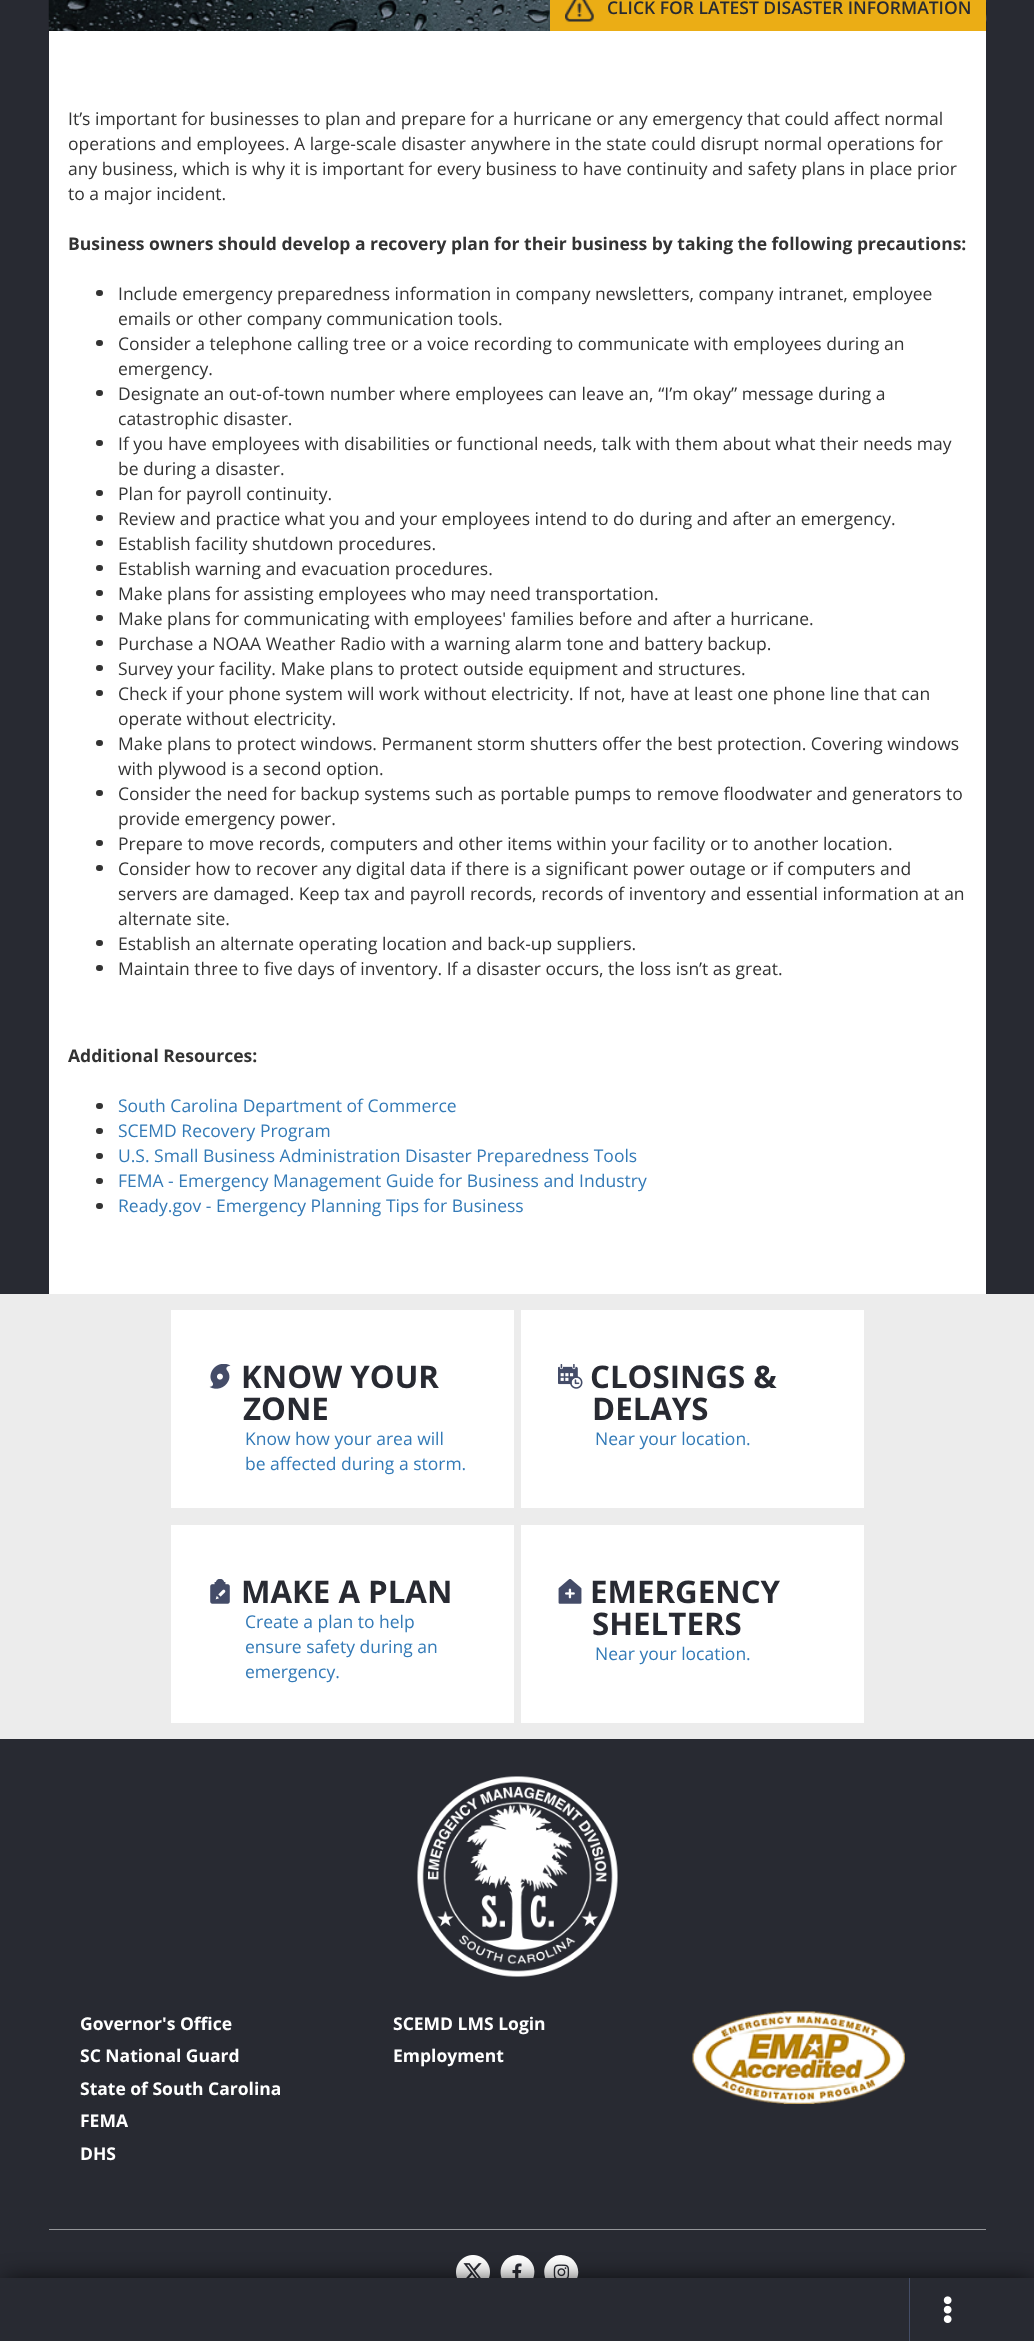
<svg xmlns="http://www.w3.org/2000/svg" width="1034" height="2341">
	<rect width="100%" height="100%" fill="#282A32" />
	<image x="48" y="0" width="939" height="32" href="assets/img1.png" />
	<rect x="550" y="0" width="436" height="31" fill="#EBAD15" />
	<image x="565" y="0" width="29" height="22" href="assets/img2.png" />
	<text x="607" y="14" font-family="Open Sans" font-size="17.5" font-weight="600" fill="#282A32">CLICK FOR LATEST DISASTER INFORMATION</text>
	<rect x="49" y="31" width="937" height="1263" fill="#FFFFFF" />
	<g font-family="Open Sans" font-size="17.5" fill="#333333">
		<text x="68" y="125">It’s important for businesses to plan and prepare for a hurricane or any emergency that could affect normal</text>
		<text x="68" y="150">operations and employees. A large-scale disaster anywhere in the state could disrupt normal operations for</text>
		<text x="68" y="175">any business, which is why it is important for every business to have continuity and safety plans in place prior</text>
		<text x="68" y="200">to a major incident.</text>
	</g>
	<text x="68" y="250" font-family="Open Sans" font-size="17.5" font-weight="700" fill="#333333">Business owners should develop a recovery plan for their business by taking the following precautions:</text>
	<rect x="96" y="290" width="7" height="6" rx="3" fill="#333333" />
	<g font-family="Open Sans" font-size="17.5" fill="#333333">
		<text x="118" y="300">Include emergency preparedness information in company newsletters, company intranet, employee</text>
		<text x="118" y="325">emails or other company communication tools.</text>
	</g>
	<rect x="96" y="340" width="7" height="6" rx="3" fill="#333333" />
	<g font-family="Open Sans" font-size="17.5" fill="#333333">
		<text x="118" y="350">Consider a telephone calling tree or a voice recording to communicate with employees during an</text>
		<text x="118" y="375">emergency.</text>
	</g>
	<rect x="96" y="390" width="7" height="6" rx="3" fill="#333333" />
	<g font-family="Open Sans" font-size="17.5" fill="#333333">
		<text x="118" y="400">Designate an out-of-town number where employees can leave an, “I’m okay” message during a</text>
		<text x="118" y="425">catastrophic disaster.</text>
	</g>
	<rect x="96" y="440" width="7" height="6" rx="3" fill="#333333" />
	<g font-family="Open Sans" font-size="17.5" fill="#333333">
		<text x="118" y="450">If you have employees with disabilities or functional needs, talk with them about what their needs may</text>
		<text x="118" y="475">be during a disaster.</text>
	</g>
	<rect x="96" y="490" width="7" height="6" rx="3" fill="#333333" />
	<text x="118" y="500" font-family="Open Sans" font-size="17.5" fill="#333333">Plan for payroll continuity.</text>
	<rect x="96" y="515" width="7" height="6" rx="3" fill="#333333" />
	<text x="118" y="525" font-family="Open Sans" font-size="17.5" fill="#333333">Review and practice what you and your employees intend to do during and after an emergency.</text>
	<rect x="96" y="540" width="7" height="6" rx="3" fill="#333333" />
	<text x="118" y="550" font-family="Open Sans" font-size="17.5" fill="#333333">Establish facility shutdown procedures.</text>
	<rect x="96" y="565" width="7" height="6" rx="3" fill="#333333" />
	<text x="118" y="575" font-family="Open Sans" font-size="17.5" fill="#333333">Establish warning and evacuation procedures.</text>
	<rect x="96" y="590" width="7" height="6" rx="3" fill="#333333" />
	<text x="118" y="600" font-family="Open Sans" font-size="17.5" fill="#333333">Make plans for assisting employees who may need transportation.</text>
	<rect x="96" y="615" width="7" height="6" rx="3" fill="#333333" />
	<text x="118" y="625" font-family="Open Sans" font-size="17.5" fill="#333333">Make plans for communicating with employees' families before and after a hurricane.</text>
	<rect x="96" y="640" width="7" height="6" rx="3" fill="#333333" />
	<text x="118" y="650" font-family="Open Sans" font-size="17.5" fill="#333333">Purchase a NOAA Weather Radio with a warning alarm tone and battery backup.</text>
	<rect x="96" y="665" width="7" height="6" rx="3" fill="#333333" />
	<text x="118" y="675" font-family="Open Sans" font-size="17.5" fill="#333333">Survey your facility. Make plans to protect outside equipment and structures.</text>
	<rect x="96" y="690" width="7" height="6" rx="3" fill="#333333" />
	<g font-family="Open Sans" font-size="17.5" fill="#333333">
		<text x="118" y="700">Check if your phone system will work without electricity. If not, have at least one phone line that can</text>
		<text x="118" y="725">operate without electricity.</text>
	</g>
	<rect x="96" y="740" width="7" height="6" rx="3" fill="#333333" />
	<g font-family="Open Sans" font-size="17.5" fill="#333333">
		<text x="118" y="750">Make plans to protect windows. Permanent storm shutters offer the best protection. Covering windows</text>
		<text x="118" y="775">with plywood is a second option.</text>
	</g>
	<rect x="96" y="790" width="7" height="6" rx="3" fill="#333333" />
	<g font-family="Open Sans" font-size="17.5" fill="#333333">
		<text x="118" y="800">Consider the need for backup systems such as portable pumps to remove floodwater and generators to</text>
		<text x="118" y="825">provide emergency power.</text>
	</g>
	<rect x="96" y="840" width="7" height="6" rx="3" fill="#333333" />
	<text x="118" y="850" font-family="Open Sans" font-size="17.5" fill="#333333">Prepare to move records, computers and other items within your facility or to another location.</text>
	<rect x="96" y="865" width="7" height="6" rx="3" fill="#333333" />
	<g font-family="Open Sans" font-size="17.5" fill="#333333">
		<text x="118" y="875">Consider how to recover any digital data if there is a significant power outage or if computers and</text>
		<text x="118" y="900">servers are damaged. Keep tax and payroll records, records of inventory and essential information at an</text>
		<text x="118" y="925">alternate site.</text>
	</g>
	<rect x="96" y="940" width="7" height="6" rx="3" fill="#333333" />
	<text x="118" y="950" font-family="Open Sans" font-size="17.5" fill="#333333">Establish an alternate operating location and back-up suppliers.</text>
	<rect x="96" y="965" width="7" height="6" rx="3" fill="#333333" />
	<text x="118" y="975" font-family="Open Sans" font-size="17.5" fill="#333333">Maintain three to five days of inventory. If a disaster occurs, the loss isn’t as great.</text>
	<text x="68" y="1062" font-family="Open Sans" font-size="17.5" font-weight="700" fill="#333333">Additional Resources:</text>
	<rect x="96" y="1103" width="7" height="6" rx="3" fill="#333333" />
	<text x="118" y="1112" font-family="Open Sans" font-size="17.5" fill="#337AB7">South Carolina Department of Commerce</text>
	<rect x="96" y="1128" width="7" height="6" rx="3" fill="#333333" />
	<text x="118" y="1137" font-family="Open Sans" font-size="17.5" fill="#337AB7">SCEMD Recovery Program</text>
	<rect x="96" y="1153" width="7" height="6" rx="3" fill="#333333" />
	<text x="118" y="1162" font-family="Open Sans" font-size="17.5" fill="#337AB7">U.S. Small Business Administration Disaster Preparedness Tools</text>
	<rect x="96" y="1178" width="7" height="6" rx="3" fill="#333333" />
	<text x="118" y="1187" font-family="Open Sans" font-size="17.5" fill="#337AB7">FEMA - Emergency Management Guide for Business and Industry</text>
	<rect x="96" y="1203" width="7" height="6" rx="3" fill="#333333" />
	<text x="118" y="1212" font-family="Open Sans" font-size="17.5" fill="#337AB7">Ready.gov - Emergency Planning Tips for Business</text>
	<rect x="0" y="1294" width="1034" height="445" fill="#ECECEC" />
	<rect x="171" y="1310" width="343" height="198" fill="#FFFFFF" />
	<image x="209" y="1364" width="22" height="25" href="assets/img3.png" />
	<g font-family="Open Sans" font-size="31.25" font-weight="700" fill="#282A32">
		<text x="241" y="1388">KNOW YOUR</text>
		<text x="243" y="1420">ZONE</text>
	</g>
	<g font-family="Open Sans" font-size="17.5" fill="#337AB7">
		<text x="245" y="1445">Know how your area will</text>
		<text x="245" y="1470">be affected during a storm.</text>
	</g>
	<rect x="521" y="1310" width="343" height="198" fill="#FFFFFF" />
	<image x="558" y="1364" width="25" height="25" href="assets/img4.png" />
	<g font-family="Open Sans" font-size="31.25" font-weight="700" fill="#282A32">
		<text x="590" y="1388">CLOSINGS &amp;</text>
		<text x="592" y="1420">DELAYS</text>
	</g>
	<text x="595" y="1445" font-family="Open Sans" font-size="17.5" fill="#337AB7">Near your location.</text>
	<rect x="171" y="1525" width="343" height="198" fill="#FFFFFF" />
	<image x="210" y="1579" width="20" height="25" href="assets/img5.png" />
	<text x="241" y="1603" font-family="Open Sans" font-size="31.25" font-weight="700" fill="#282A32">MAKE A PLAN</text>
	<g font-family="Open Sans" font-size="17.5" fill="#337AB7">
		<text x="245" y="1628">Create a plan to help</text>
		<text x="245" y="1653">ensure safety during an</text>
		<text x="245" y="1678">emergency.</text>
	</g>
	<rect x="521" y="1525" width="343" height="198" fill="#FFFFFF" />
	<image x="558" y="1579" width="24" height="25" href="assets/img6.png" />
	<g font-family="Open Sans" font-size="31.25" font-weight="700" fill="#282A32">
		<text x="590" y="1603">EMERGENCY</text>
		<text x="592" y="1635">SHELTERS</text>
	</g>
	<text x="595" y="1660" font-family="Open Sans" font-size="17.5" fill="#337AB7">Near your location.</text>
	<image x="417" y="1776" width="201" height="201" href="assets/img7.png" />
	<g font-family="Open Sans" font-size="17.5" font-weight="700" fill="#FFFFFF">
		<text x="80" y="2030">Governor's Office</text>
		<text x="80" y="2062">SC National Guard</text>
		<text x="80" y="2095">State of South Carolina</text>
		<text x="80" y="2127">FEMA</text>
		<text x="80" y="2160">DHS</text>
		<text x="393" y="2030">SCEMD LMS Login</text>
		<text x="393" y="2062">Employment</text>
	</g>
	<image x="692" y="2011" width="213" height="93" href="assets/img8.png" />
	<rect x="49" y="2229" width="937" height="1" fill="#949599" />
	<image x="456" y="2255" width="34" height="23" href="assets/img9.png" />
	<path d="M517.5 2255C501.5 2255 494.5 2275.5 507 2285.5C510 2287.5 514 2289 517.5 2289C533.5 2289 540.5 2268.5 528 2258.5C525 2256 521 2255 517.5 2255Z" fill="#FFFFFF" />
	<image x="512" y="2263" width="10" height="15" href="assets/img10.png" />
	<path d="M561 2255C557.5 2255 554 2256 551 2258.5C538 2268.5 545 2289 561 2289C565 2289 568.5 2287.5 571.5 2285.5C584.5 2275.5 577.5 2255 561 2255Z" fill="#FFFFFF" />
	<image x="553" y="2264" width="17" height="14" href="assets/img11.png" />
	<rect x="4" y="2283" width="1030" height="58" fill="#000000" filter="blur(13px)" />
	<rect x="0" y="2278" width="1034" height="63" fill="#282A32" />
	<rect x="909" y="2278" width="1" height="63" fill="#444D67" />
	<image x="943" y="2296" width="9" height="27" href="assets/img12.png" />
</svg>
